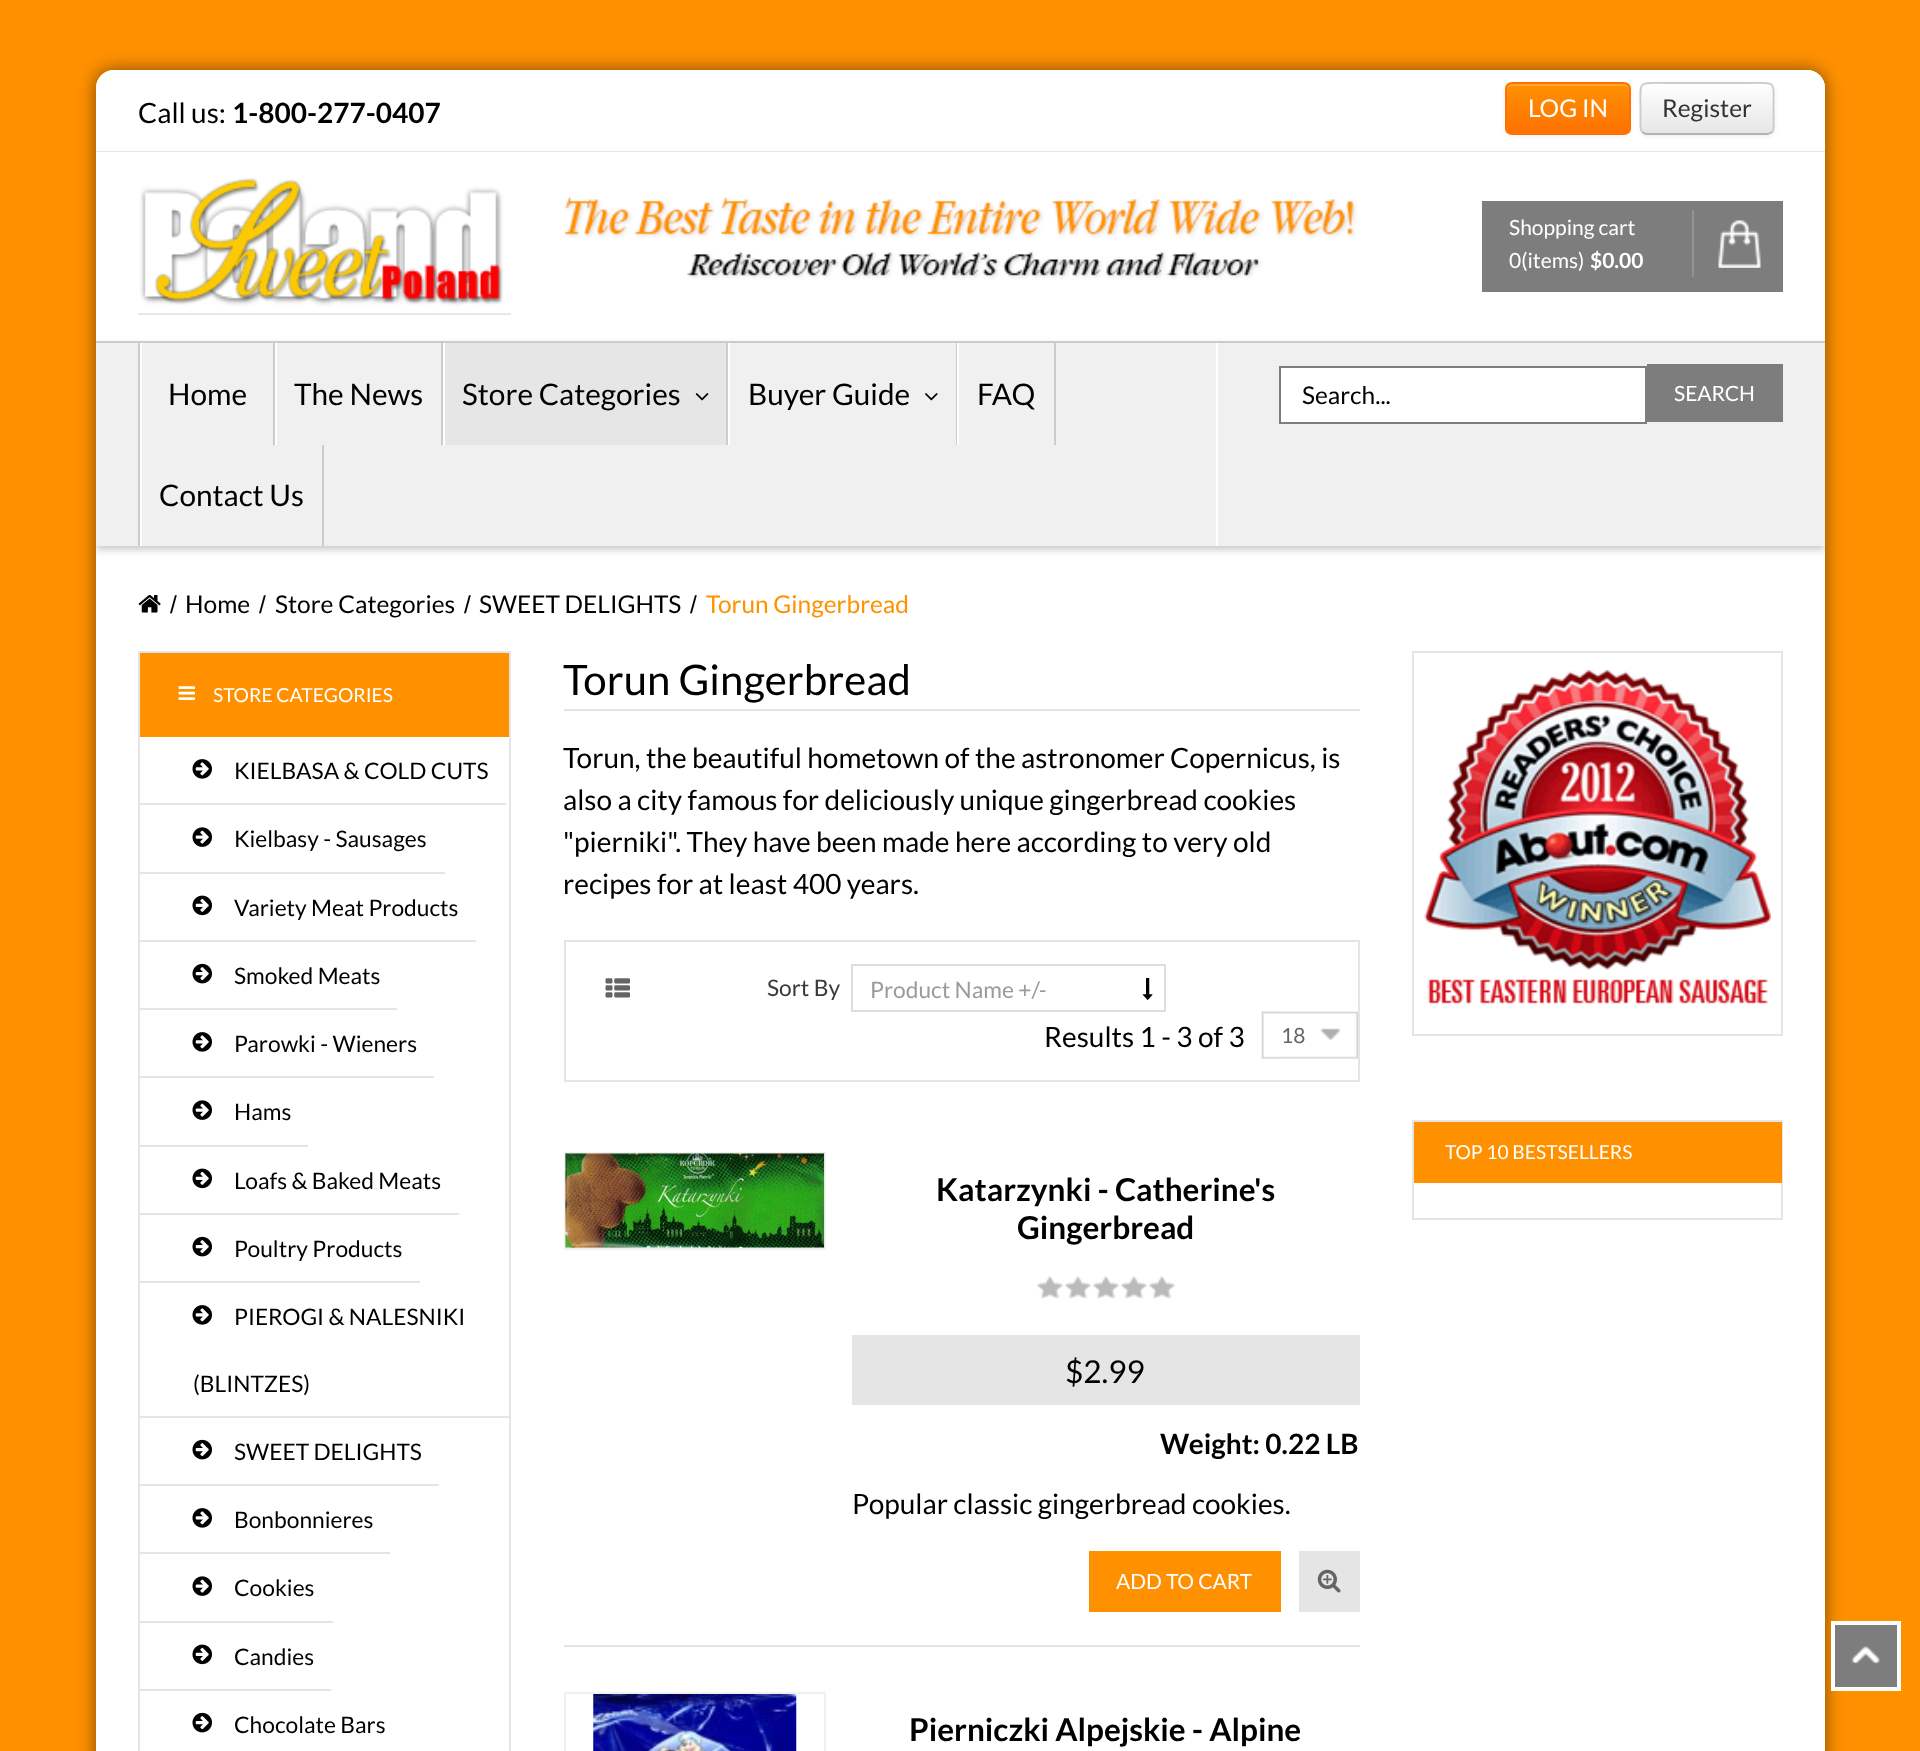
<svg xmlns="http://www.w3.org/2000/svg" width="1920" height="1751">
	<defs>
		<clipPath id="clip1"><rect x="1505" y="82" width="126" height="53" rx="7" /></clipPath>
		<linearGradient id="g1" gradientUnits="userSpaceOnUse" x1="1568" y1="84" x2="1568" y2="133"><stop offset="0" stop-color="#FF9101" /><stop offset="1" stop-color="#FF7201" /></linearGradient>
		<clipPath id="clip2"><rect x="1640" y="82" width="135" height="53" rx="7" /></clipPath>
		<linearGradient id="g2" gradientUnits="userSpaceOnUse" x1="1707" y1="84" x2="1707" y2="133"><stop offset="0" stop-color="#FFFFFF" /><stop offset="1" stop-color="#E6E6E6" /></linearGradient>
		<clipPath id="clip3"><rect x="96" y="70" width="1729" height="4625" rx="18" /></clipPath>
	</defs>
	<rect width="100%" height="100%" fill="#FF9101" />
	<rect x="96" y="70" width="1729" height="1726" rx="18" fill="#000000" fill-opacity="0.5" filter="blur(9px)" />
	<rect x="96" y="70" width="1729" height="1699" rx="18" fill="#FFFFFF" />
	<path d="M114 70H1807C1817 70 1825 78 1825 88V152H96V88C96 78 104 70 114 70Z" fill="#FFFFFF" />
	<rect x="96" y="151" width="1729" height="1" fill="#E5E5E5" />
	<text x="138" y="123" font-family="Lato" font-size="28" fill="#000000">Call us:</text>
	<text x="232" y="123" font-family="Lato" font-size="28" font-weight="700" fill="#000000">1-800-277-0407</text>
	<rect x="1505" y="84" width="126" height="53" rx="7" fill="#000000" fill-opacity="0.05" filter="blur(2px)" />
	<g clip-path="url(#clip1)">
		<rect x="1505" y="84" width="126" height="49" fill="url(#g1)" />
	</g>
	<path d="M1512 86H1624C1627 86 1629 88 1629 91V89C1629 86 1627 84 1624 84H1512C1509 84 1507 86 1507 89V91C1507 88 1509 86 1512 86Z" fill="#FFFFFF" fill-opacity="0.2" />
	<rect x="1506" y="83" width="124" height="51" rx="6" fill="none" stroke="#FF7201" stroke-width="2" />
	<text x="1528" y="117" font-family="Lato" font-size="24.5" fill="#FFFFFF">LOG IN</text>
	<rect x="1640" y="84" width="135" height="53" rx="7" fill="#000000" fill-opacity="0.05" filter="blur(2px)" />
	<rect x="1640" y="82" width="135" height="53" rx="7" fill="#F5F5F5" />
	<g clip-path="url(#clip2)">
		<rect x="1640" y="84" width="135" height="49" fill="url(#g2)" />
	</g>
	<path d="M1772 132C1770.5 133 1769 134 1767.5 134H1647C1645 134 1643.5 133 1642.5 132" fill="none" stroke="#B3B3B3" stroke-width="1.8" />
	<path d="M1642.5 132C1639.5 129.5 1640.5 124.5 1640.5 121.5V108.5C1640.5 79.5 1636.5 83 1667 83H1747.5C1777.5 83 1773.5 79.5 1773.5 108.5V121.5C1773.5 124.5 1774.5 129.5 1772 132" fill="none" stroke="#CCCCCC" stroke-width="1.8" />
	<text x="1662" y="117" font-family="Lato" font-size="24.5" fill="#333333">Register</text>
	<rect x="138" y="313" width="373" height="2" fill="#E5E5E5" />
	<image x="138" y="178" width="371" height="136" href="assets/img1.png" />
	<image x="564" y="197" width="793" height="83" href="assets/img2.png" />
	<rect x="1482" y="201" width="301" height="91" fill="#7D7D7D" />
	<text x="1509" y="235" font-family="Lato" font-size="21" fill="#FFFFFF">Shopping cart</text>
	<image x="1718" y="220" width="43" height="48" href="assets/img3.png" />
	<rect x="1692" y="210" width="2" height="67" fill="#909295" />
	<text x="1509" y="268" font-family="Lato" font-size="21" fill="#FFFFFF">0(items)</text>
	<text x="1590" y="268" font-family="Lato" font-size="21" font-weight="700" fill="#FFFFFF">$0.00</text>
	<g clip-path="url(#clip3)">
		<rect x="96" y="345" width="1729" height="205" fill="#9A9A9A" fill-opacity="0.5" filter="blur(3.5px)" />
	</g>
	<rect x="96" y="343" width="1729" height="203" fill="#F0F0F0" />
	<rect x="96" y="341" width="1729" height="2" fill="#CCCCCC" />
	<rect x="1216" y="343" width="2" height="203" fill="#FFFFFF" />
	<rect x="138" y="343" width="2" height="203" fill="#CCCCCC" />
	<rect x="273" y="343" width="2" height="102" fill="#CCCCCC" />
	<rect x="140" y="343" width="2" height="203" fill="#FFFFFF" />
	<text x="168" y="405" font-family="Lato" font-size="29.75" fill="#000000">Home</text>
	<rect x="441" y="343" width="2" height="102" fill="#CCCCCC" />
	<rect x="275" y="343" width="2" height="102" fill="#FFFFFF" />
	<text x="294" y="405" font-family="Lato" font-size="29.75" fill="#000000">The News</text>
	<rect x="445" y="343" width="281" height="102" fill="#E6E6E6" />
	<rect x="726" y="343" width="2" height="102" fill="#CCCCCC" />
	<rect x="443" y="343" width="2" height="102" fill="#FFFFFF" />
	<text x="462" y="405" font-family="Lato" font-size="29.75" fill="#000000">Store Categories</text>
	<image x="695" y="393" width="14" height="8" href="assets/img4.png" />
	<rect x="956" y="343" width="1" height="102" fill="#CCCCCC" />
	<rect x="728" y="343" width="2" height="102" fill="#FFFFFF" />
	<text x="748" y="405" font-family="Lato" font-size="29.75" fill="#000000">Buyer Guide</text>
	<image x="925" y="393" width="13" height="8" href="assets/img5.png" />
	<rect x="1054" y="343" width="2" height="102" fill="#CCCCCC" />
	<rect x="957" y="343" width="2" height="102" fill="#FFFFFF" />
	<text x="977" y="405" font-family="Lato" font-size="29.75" fill="#000000">FAQ</text>
	<rect x="322" y="445" width="2" height="101" fill="#CCCCCC" />
	<text x="159" y="506" font-family="Lato" font-size="29.75" fill="#000000">Contact Us</text>
	<rect x="1280" y="367" width="366" height="56" fill="#FFFFFF" stroke="#7D7D7D" stroke-width="2" />
	<text x="1302" y="404" font-family="Lato" font-size="24.5" fill="#000000">Search...</text>
	<rect x="1647" y="364" width="136" height="58" fill="#7D7D7D" />
	<text x="1674" y="401" font-family="Lato" font-size="21" fill="#FFFFFF">SEARCH</text>
	<image x="138" y="595" width="23" height="18" href="assets/img6.png" />
	<text x="170" y="613" font-family="Liberation Sans" font-size="24.5" fill="#000000">/</text>
	<text x="185" y="613" font-family="Lato" font-size="24.5" fill="#000000">Home</text>
	<text x="259" y="613" font-family="Liberation Sans" font-size="24.5" fill="#000000">/</text>
	<text x="275" y="613" font-family="Lato" font-size="24.5" fill="#000000">Store Categories</text>
	<text x="464" y="613" font-family="Liberation Sans" font-size="24.5" fill="#000000">/</text>
	<text x="479" y="613" font-family="Lato" font-size="24.5" fill="#000000">SWEET DELIGHTS</text>
	<text x="690" y="613" font-family="Liberation Sans" font-size="24.5" fill="#000000">/</text>
	<text x="706" y="613" font-family="Lato" font-size="24.5" fill="#FF9101">Torun Gingerbread</text>
	<rect x="139" y="652" width="371" height="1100" fill="none" stroke="#E5E5E5" stroke-width="2" />
	<rect x="140" y="653" width="369" height="84" fill="#FF9101" />
	<image x="178" y="686" width="17" height="14" href="assets/img7.png" />
	<text x="213" y="702" font-family="Lato" font-size="19.25" fill="#FFFFFF">STORE CATEGORIES</text>
	<rect x="140" y="803" width="366" height="2" fill="#E5E5E5" />
	<image x="192" y="759" width="20" height="20" href="assets/img8.png" />
	<text x="234" y="779" font-family="Lato" font-size="22.75" fill="#000000">KIELBASA &amp; COLD CUTS</text>
	<rect x="140" y="872" width="305" height="2" fill="#E5E5E5" />
	<image x="192" y="827" width="20" height="20" href="assets/img9.png" />
	<text x="234" y="847" font-family="Lato" font-size="22.75" fill="#000000">Kielbasy - Sausages</text>
	<rect x="140" y="940" width="336" height="2" fill="#E5E5E5" />
	<image x="192" y="895" width="20" height="21" href="assets/img10.png" />
	<text x="234" y="916" font-family="Lato" font-size="22.75" fill="#000000">Variety Meat Products</text>
	<rect x="140" y="1008" width="257" height="2" fill="#E5E5E5" />
	<image x="192" y="963" width="20" height="21" href="assets/img11.png" />
	<text x="234" y="984" font-family="Lato" font-size="22.75" fill="#000000">Smoked Meats</text>
	<rect x="140" y="1076" width="294" height="2" fill="#E5E5E5" />
	<image x="192" y="1032" width="20" height="20" href="assets/img8.png" />
	<text x="234" y="1052" font-family="Lato" font-size="22.75" fill="#000000">Parowki - Wieners</text>
	<rect x="140" y="1145" width="168" height="2" fill="#E5E5E5" />
	<image x="192" y="1100" width="20" height="20" href="assets/img9.png" />
	<text x="234" y="1120" font-family="Lato" font-size="22.75" fill="#000000">Hams</text>
	<rect x="140" y="1213" width="319" height="2" fill="#E5E5E5" />
	<image x="192" y="1168" width="20" height="21" href="assets/img10.png" />
	<text x="234" y="1189" font-family="Lato" font-size="22.75" fill="#000000">Loafs &amp; Baked Meats</text>
	<rect x="140" y="1281" width="280" height="2" fill="#E5E5E5" />
	<image x="192" y="1236" width="20" height="21" href="assets/img11.png" />
	<text x="234" y="1257" font-family="Lato" font-size="22.75" fill="#000000">Poultry Products</text>
	<rect x="140" y="1416" width="369" height="2" fill="#E5E5E5" />
	<image x="192" y="1305" width="20" height="20" href="assets/img8.png" />
	<g font-family="Lato" font-size="22.75" fill="#000000">
		<text x="234" y="1325">PIEROGI &amp; NALESNIKI</text>
		<text x="193" y="1392">(BLINTZES)</text>
	</g>
	<rect x="140" y="1484" width="299" height="2" fill="#E5E5E5" />
	<image x="192" y="1439" width="20" height="21" href="assets/img11.png" />
	<text x="234" y="1460" font-family="Lato" font-size="22.75" fill="#000000">SWEET DELIGHTS</text>
	<rect x="140" y="1552" width="250" height="2" fill="#E5E5E5" />
	<image x="192" y="1508" width="20" height="20" href="assets/img8.png" />
	<text x="234" y="1528" font-family="Lato" font-size="22.75" fill="#000000">Bonbonnieres</text>
	<rect x="140" y="1621" width="193" height="2" fill="#E5E5E5" />
	<image x="192" y="1576" width="20" height="20" href="assets/img9.png" />
	<text x="234" y="1596" font-family="Lato" font-size="22.75" fill="#000000">Cookies</text>
	<rect x="140" y="1689" width="191" height="2" fill="#E5E5E5" />
	<image x="192" y="1644" width="20" height="21" href="assets/img10.png" />
	<text x="234" y="1665" font-family="Lato" font-size="22.75" fill="#000000">Candies</text>
	<image x="192" y="1712" width="20" height="21" href="assets/img11.png" />
	<text x="234" y="1733" font-family="Lato" font-size="22.75" fill="#000000">Chocolate Bars</text>
	<rect x="564" y="709" width="796" height="2" fill="#E5E5E5" />
	<text x="563" y="695" font-family="Lato" font-size="42" fill="#000000">Torun Gingerbread</text>
	<g font-family="Lato" font-size="28" fill="#000000">
		<text x="563" y="768">Torun, the beautiful hometown of the astronomer Copernicus, is</text>
		<text x="563" y="810">also a city famous for deliciously unique gingerbread cookies</text>
		<text x="563" y="852">"pierniki". They have been made here according to very old</text>
		<text x="563" y="894">recipes for at least 400 years.</text>
	</g>
	<rect x="565" y="941" width="794" height="140" fill="none" stroke="#E5E5E5" stroke-width="2" />
	<image x="605" y="978" width="25" height="20" href="assets/img12.png" />
	<text x="767" y="996" font-family="Lato" font-size="22.75" fill="#393939">Sort By</text>
	<rect x="852" y="965" width="313" height="46" fill="none" stroke="#DDDDDD" stroke-width="2" />
	<text x="870" y="998" font-family="Lato" font-size="22.75" fill="#9C9B9B">Product Name +/-</text>
	<image x="1142" y="978" width="11" height="22" href="assets/img13.png" />
	<text x="1044" y="1047" font-family="Lato" font-size="28" fill="#000000">Results 1 - 3 of 3</text>
	<image x="1261" y="1011" width="19" height="48" href="assets/img14.png" />
	<image x="1279" y="1011" width="79" height="48" href="assets/img15.png" />
	<text x="1281" y="1043" font-family="Lato" font-size="21" fill="#666666">18</text>
	<rect x="564" y="1645" width="796" height="2" fill="#E5E5E5" />
	<rect x="565" y="1153" width="260" height="96" fill="none" stroke="#F1F1F1" stroke-width="2" />
	<image x="565" y="1153" width="260" height="95" href="assets/img16.png" />
	<g font-family="Lato" font-size="31.5" font-weight="700" fill="#000000">
		<text x="936" y="1201">Katarzynki - Catherine's</text>
		<text x="1017" y="1239">Gingerbread</text>
	</g>
	<image x="1037" y="1276" width="138" height="23" href="assets/img17.png" />
	<rect x="852" y="1335" width="508" height="70" fill="#E5E5E5" />
	<text x="1065" y="1383" font-family="Lato" font-size="31.5" fill="#000000">$2.99</text>
	<text x="1160" y="1454" font-family="Lato" font-size="28" font-weight="700" fill="#000000">Weight: 0.22 LB</text>
	<text x="852" y="1514" font-family="Lato" font-size="28" fill="#000000">Popular classic gingerbread cookies.</text>
	<rect x="1089" y="1551" width="192" height="61" fill="#FF9101" />
	<text x="1116" y="1589" font-family="Lato" font-size="21" fill="#FFFFFF">ADD TO CART</text>
	<rect x="1299" y="1551" width="61" height="61" fill="#E5E5E5" />
	<image x="1317" y="1569" width="24" height="24" href="assets/img18.png" />
	<rect x="565" y="1693" width="260" height="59" fill="none" stroke="#F1F1F1" stroke-width="2" />
	<image x="593" y="1694" width="204" height="57" href="assets/img19.png" />
	<text x="909" y="1741" font-family="Lato" font-size="31.5" font-weight="700" fill="#000000">Pierniczki Alpejskie - Alpine</text>
	<rect x="1413" y="652" width="369" height="383" fill="none" stroke="#E5E5E5" stroke-width="2" />
	<image x="1424" y="670" width="347" height="334" href="assets/img20.png" />
	<rect x="1413" y="1121" width="369" height="98" fill="none" stroke="#E5E5E5" stroke-width="2" />
	<rect x="1414" y="1122" width="368" height="61" fill="#FF9101" />
	<text x="1445" y="1159" font-family="Lato" font-size="19.25" fill="#FFFFFF">TOP 10 BESTSELLERS</text>
	<rect x="1835" y="1625" width="62" height="62" fill="#7D7D7D" />
	<image x="1851" y="1646" width="29" height="19" href="assets/img21.png" />
	<rect x="1833" y="1623" width="66" height="66" fill="none" stroke="#FFFFFF" stroke-width="4" />
</svg>
